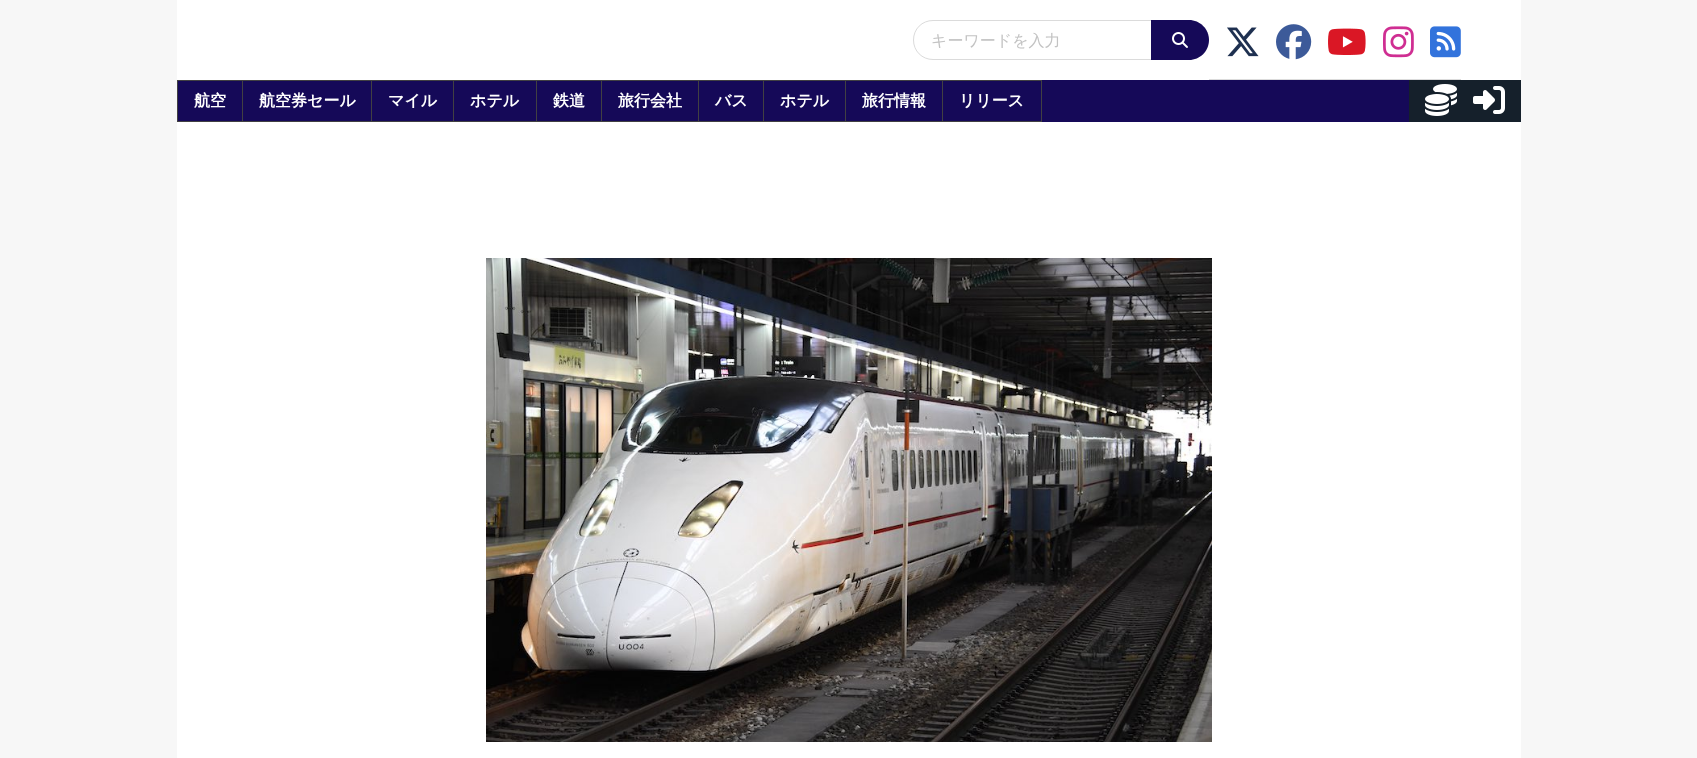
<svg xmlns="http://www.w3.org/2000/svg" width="1697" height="758">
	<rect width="100%" height="100%" fill="#F7F7F7" />
	<rect x="177" y="0" width="1344" height="758" fill="#FFFFFF" />
	<path d="M933 20.5H1151.5V59.5H933C922 59.5 913.5 51 913.5 40C913.5 29 922 20.5 933 20.5Z" fill="none" stroke="#DBDBDB" />
	<text x="931" y="46" font-family="WenQuanYi Zen Hei" font-size="16" font-weight="500" fill="#C3C3C3">キーワードを入力</text>
	<path d="M1151 20H1189C1200 20 1209 29 1209 40C1209 51 1200 60 1189 60H1151Z" fill="#150958" />
	<image x="1172" y="32" width="16" height="16" href="assets/img1.png" />
	<rect x="1209" y="79" width="252" height="1" fill="#DBDBDB" />
	<image x="1227" y="27" width="32" height="30" href="assets/img2.png" />
	<image x="1276" y="24" width="36" height="36" href="assets/img3.png" />
	<image x="1328" y="28" width="38" height="27" href="assets/img4.png" />
	<image x="1383" y="26" width="31" height="32" href="assets/img5.png" />
	<image x="1430" y="26" width="31" height="32" href="assets/img6.png" />
	<rect x="178" y="80" width="1231" height="42" fill="#150958" />
	<rect x="177.5" y="80.5" width="65" height="41" fill="none" stroke="#414042" />
	<text x="194" y="106" font-family="WenQuanYi Zen Hei" font-size="16" font-weight="700" fill="#FFFFFF">航空</text>
	<rect x="242.5" y="80.5" width="129" height="41" fill="none" stroke="#414042" />
	<text x="259" y="106" font-family="WenQuanYi Zen Hei" font-size="16" font-weight="700" fill="#FFFFFF">航空券セール</text>
	<rect x="371.5" y="80.5" width="82" height="41" fill="none" stroke="#414042" />
	<text x="388" y="106" font-family="WenQuanYi Zen Hei" font-size="16" font-weight="700" fill="#FFFFFF">マイル</text>
	<rect x="453.5" y="80.5" width="83" height="41" fill="none" stroke="#414042" />
	<text x="470" y="106" font-family="WenQuanYi Zen Hei" font-size="16" font-weight="700" fill="#FFFFFF">ホテル</text>
	<rect x="536.5" y="80.5" width="65" height="41" fill="none" stroke="#414042" />
	<text x="553" y="106" font-family="WenQuanYi Zen Hei" font-size="16" font-weight="700" fill="#FFFFFF">鉄道</text>
	<rect x="601.5" y="80.5" width="97" height="41" fill="none" stroke="#414042" />
	<text x="618" y="106" font-family="WenQuanYi Zen Hei" font-size="16" font-weight="700" fill="#FFFFFF">旅行会社</text>
	<rect x="698.5" y="80.5" width="65" height="41" fill="none" stroke="#414042" />
	<text x="715" y="106" font-family="WenQuanYi Zen Hei" font-size="16" font-weight="700" fill="#FFFFFF">バス</text>
	<rect x="763.5" y="80.5" width="82" height="41" fill="none" stroke="#414042" />
	<text x="780" y="106" font-family="WenQuanYi Zen Hei" font-size="16" font-weight="700" fill="#FFFFFF">ホテル</text>
	<rect x="845.5" y="80.5" width="97" height="41" fill="none" stroke="#414042" />
	<text x="862" y="106" font-family="WenQuanYi Zen Hei" font-size="16" font-weight="700" fill="#FFFFFF">旅行情報</text>
	<rect x="942.5" y="80.5" width="99" height="41" fill="none" stroke="#414042" />
	<text x="959" y="106" font-family="WenQuanYi Zen Hei" font-size="16" font-weight="700" fill="#FFFFFF">リリース</text>
	<rect x="1409" y="80" width="112" height="42" fill="#15202B" />
	<image x="1425" y="84" width="32" height="32" href="assets/img7.png" />
	<image x="1473" y="86" width="32" height="28" href="assets/img8.png" />
	<image x="486" y="258" width="726" height="484" href="assets/img9.png" />
</svg>
